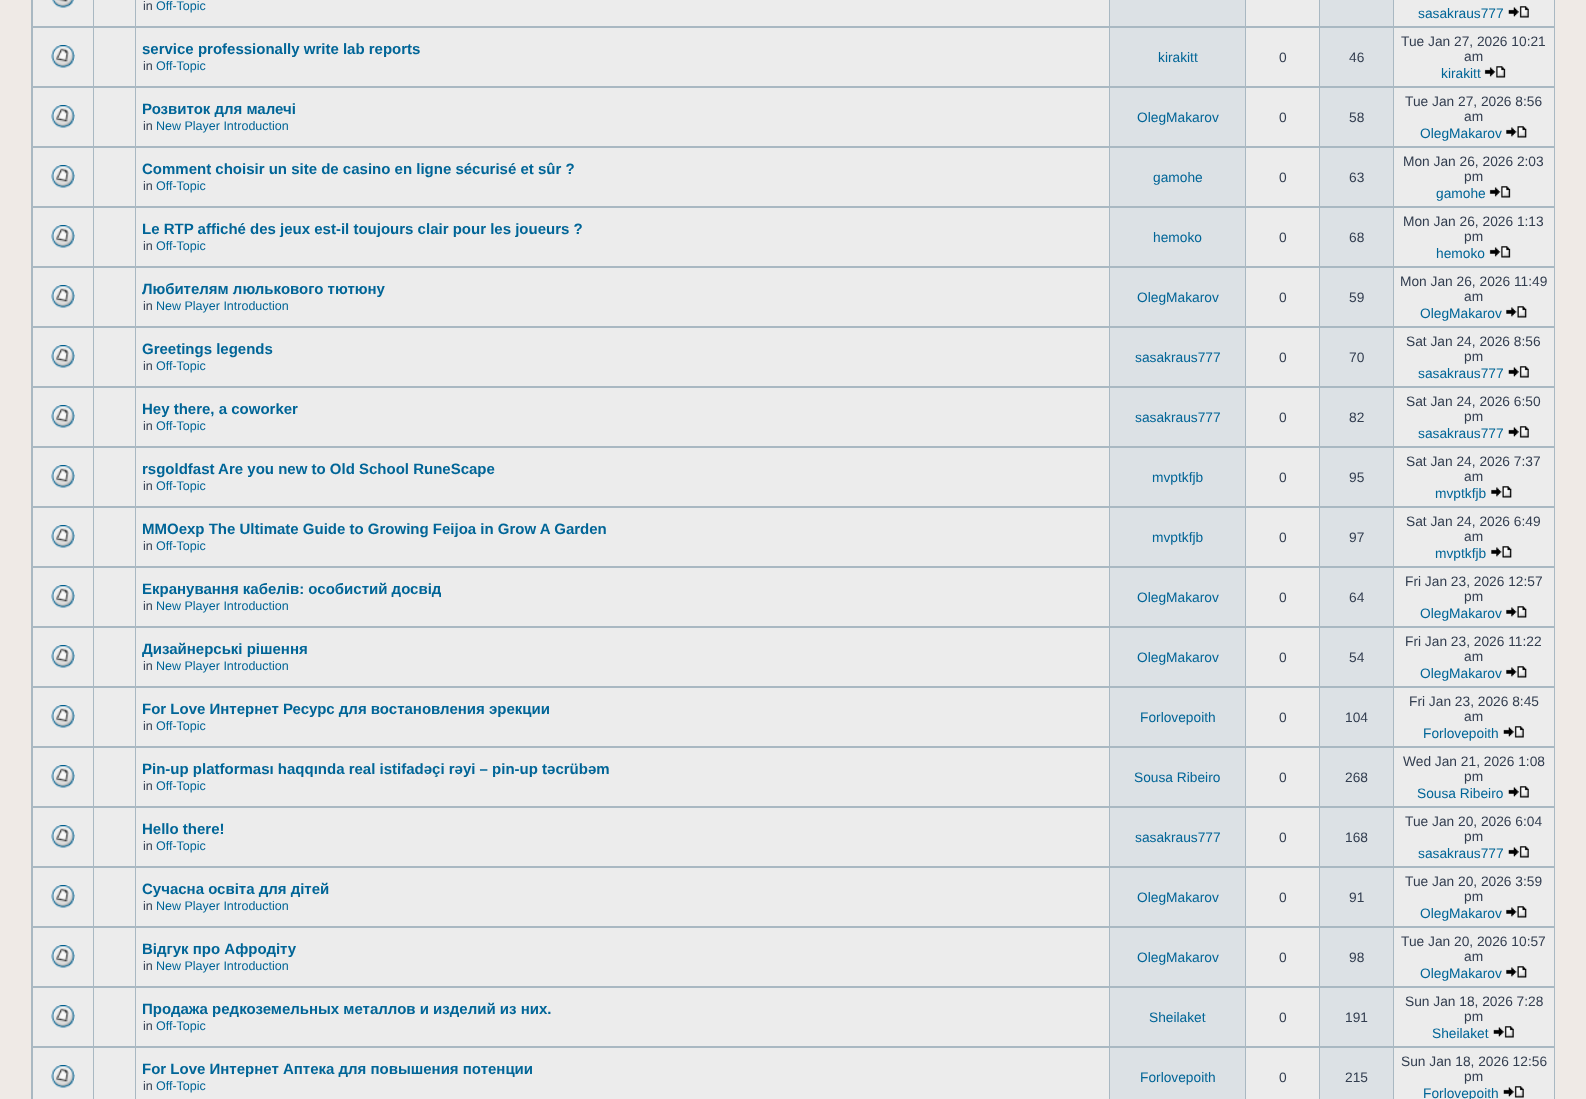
<svg xmlns="http://www.w3.org/2000/svg" width="1586" height="1099">
	<rect width="100%" height="100%" fill="#EFEAE6" />
	<rect x="31" y="0" width="1524" height="1099" fill="#A9B8C2" />
	<rect x="33" y="0" width="60" height="26" fill="#ECECEC" />
	<image x="52" y="0" width="22" height="8" href="assets/img1.png" />
	<rect x="94" y="0" width="41" height="26" fill="#ECECEC" />
	<rect x="136" y="0" width="973" height="26" fill="#ECECEC" />
	<text x="143" y="10" font-family="Liberation Sans" font-size="12.5" fill="#323D4F">in</text>
	<text x="156" y="10" font-family="Liberation Sans" font-size="12.5" fill="#006597">Off-Topic</text>
	<rect x="1110" y="0" width="135" height="26" fill="#DCE1E5" />
	<rect x="1246" y="0" width="73" height="26" fill="#ECECEC" />
	<rect x="1320" y="0" width="73" height="26" fill="#DCE1E5" />
	<rect x="1394" y="0" width="160" height="26" fill="#ECECEC" />
	<text x="1418" y="18" font-family="Liberation Sans" font-size="13.75" fill="#006597">sasakraus777</text>
	<image x="1508" y="6" width="21" height="12" href="assets/img2.png" />
	<rect x="33" y="28" width="60" height="58" fill="#ECECEC" />
	<image x="51" y="45" width="24" height="23" href="assets/img3.png" />
	<rect x="94" y="28" width="41" height="58" fill="#ECECEC" />
	<rect x="136" y="28" width="973" height="58" fill="#ECECEC" />
	<text x="142" y="54" font-family="Liberation Sans" font-size="15" font-weight="700" fill="#006597">service professionally write lab reports</text>
	<text x="143" y="70" font-family="Liberation Sans" font-size="12.5" fill="#323D4F">in</text>
	<text x="156" y="70" font-family="Liberation Sans" font-size="12.5" fill="#006597">Off-Topic</text>
	<rect x="1110" y="28" width="135" height="58" fill="#DCE1E5" />
	<text x="1158" y="62" font-family="Liberation Sans" font-size="13.75" fill="#006597">kirakitt</text>
	<rect x="1246" y="28" width="73" height="58" fill="#ECECEC" />
	<text x="1279" y="62" font-family="Liberation Sans" font-size="13.75" fill="#323D4F">0</text>
	<rect x="1320" y="28" width="73" height="58" fill="#DCE1E5" />
	<text x="1349" y="62" font-family="Liberation Sans" font-size="13.75" fill="#323D4F">46</text>
	<rect x="1394" y="28" width="160" height="58" fill="#ECECEC" />
	<g font-family="Liberation Sans" font-size="13.75" fill="#323D4F">
		<text x="1401" y="46">Tue Jan 27, 2026 10:21</text>
		<text x="1464" y="61">am</text>
	</g>
	<text x="1441" y="78" font-family="Liberation Sans" font-size="13.75" fill="#006597">kirakitt</text>
	<image x="1484" y="66" width="22" height="12" href="assets/img4.png" />
	<rect x="33" y="88" width="60" height="58" fill="#ECECEC" />
	<image x="51" y="105" width="24" height="23" href="assets/img5.png" />
	<rect x="94" y="88" width="41" height="58" fill="#ECECEC" />
	<rect x="136" y="88" width="973" height="58" fill="#ECECEC" />
	<text x="142" y="114" font-family="Liberation Sans" font-size="15" font-weight="700" fill="#006597">Розвиток для малечі</text>
	<text x="143" y="130" font-family="Liberation Sans" font-size="12.5" fill="#323D4F">in</text>
	<text x="156" y="130" font-family="Liberation Sans" font-size="12.5" fill="#006597">New Player Introduction</text>
	<rect x="1110" y="88" width="135" height="58" fill="#DCE1E5" />
	<text x="1137" y="122" font-family="Liberation Sans" font-size="13.75" fill="#006597">OlegMakarov</text>
	<rect x="1246" y="88" width="73" height="58" fill="#ECECEC" />
	<text x="1279" y="122" font-family="Liberation Sans" font-size="13.75" fill="#323D4F">0</text>
	<rect x="1320" y="88" width="73" height="58" fill="#DCE1E5" />
	<text x="1349" y="122" font-family="Liberation Sans" font-size="13.75" fill="#323D4F">58</text>
	<rect x="1394" y="88" width="160" height="58" fill="#ECECEC" />
	<g font-family="Liberation Sans" font-size="13.75" fill="#323D4F">
		<text x="1405" y="106">Tue Jan 27, 2026 8:56</text>
		<text x="1464" y="121">am</text>
	</g>
	<text x="1420" y="138" font-family="Liberation Sans" font-size="13.75" fill="#006597">OlegMakarov</text>
	<image x="1506" y="126" width="21" height="12" href="assets/img6.png" />
	<rect x="33" y="148" width="60" height="58" fill="#ECECEC" />
	<image x="51" y="165" width="24" height="23" href="assets/img5.png" />
	<rect x="94" y="148" width="41" height="58" fill="#ECECEC" />
	<rect x="136" y="148" width="973" height="58" fill="#ECECEC" />
	<text x="142" y="174" font-family="Liberation Sans" font-size="15" font-weight="700" fill="#006597">Comment choisir un site de casino en ligne sécurisé et sûr ?</text>
	<text x="143" y="190" font-family="Liberation Sans" font-size="12.5" fill="#323D4F">in</text>
	<text x="156" y="190" font-family="Liberation Sans" font-size="12.5" fill="#006597">Off-Topic</text>
	<rect x="1110" y="148" width="135" height="58" fill="#DCE1E5" />
	<text x="1153" y="182" font-family="Liberation Sans" font-size="13.75" fill="#006597">gamohe</text>
	<rect x="1246" y="148" width="73" height="58" fill="#ECECEC" />
	<text x="1279" y="182" font-family="Liberation Sans" font-size="13.75" fill="#323D4F">0</text>
	<rect x="1320" y="148" width="73" height="58" fill="#DCE1E5" />
	<text x="1349" y="182" font-family="Liberation Sans" font-size="13.75" fill="#323D4F">63</text>
	<rect x="1394" y="148" width="160" height="58" fill="#ECECEC" />
	<g font-family="Liberation Sans" font-size="13.75" fill="#323D4F">
		<text x="1403" y="166">Mon Jan 26, 2026 2:03</text>
		<text x="1464" y="181">pm</text>
	</g>
	<text x="1436" y="198" font-family="Liberation Sans" font-size="13.75" fill="#006597">gamohe</text>
	<image x="1489" y="186" width="22" height="12" href="assets/img4.png" />
	<rect x="33" y="208" width="60" height="58" fill="#ECECEC" />
	<image x="51" y="225" width="24" height="23" href="assets/img5.png" />
	<rect x="94" y="208" width="41" height="58" fill="#ECECEC" />
	<rect x="136" y="208" width="973" height="58" fill="#ECECEC" />
	<text x="142" y="234" font-family="Liberation Sans" font-size="15" font-weight="700" fill="#006597">Le RTP affiché des jeux est-il toujours clair pour les joueurs ?</text>
	<text x="143" y="250" font-family="Liberation Sans" font-size="12.5" fill="#323D4F">in</text>
	<text x="156" y="250" font-family="Liberation Sans" font-size="12.5" fill="#006597">Off-Topic</text>
	<rect x="1110" y="208" width="135" height="58" fill="#DCE1E5" />
	<text x="1153" y="242" font-family="Liberation Sans" font-size="13.75" fill="#006597">hemoko</text>
	<rect x="1246" y="208" width="73" height="58" fill="#ECECEC" />
	<text x="1279" y="242" font-family="Liberation Sans" font-size="13.75" fill="#323D4F">0</text>
	<rect x="1320" y="208" width="73" height="58" fill="#DCE1E5" />
	<text x="1349" y="242" font-family="Liberation Sans" font-size="13.75" fill="#323D4F">68</text>
	<rect x="1394" y="208" width="160" height="58" fill="#ECECEC" />
	<g font-family="Liberation Sans" font-size="13.75" fill="#323D4F">
		<text x="1403" y="226">Mon Jan 26, 2026 1:13</text>
		<text x="1464" y="241">pm</text>
	</g>
	<text x="1436" y="258" font-family="Liberation Sans" font-size="13.75" fill="#006597">hemoko</text>
	<image x="1489" y="246" width="22" height="12" href="assets/img4.png" />
	<rect x="33" y="268" width="60" height="58" fill="#ECECEC" />
	<image x="51" y="285" width="24" height="23" href="assets/img5.png" />
	<rect x="94" y="268" width="41" height="58" fill="#ECECEC" />
	<rect x="136" y="268" width="973" height="58" fill="#ECECEC" />
	<text x="142" y="294" font-family="Liberation Sans" font-size="15" font-weight="700" fill="#006597">Любителям люлькового тютюну</text>
	<text x="143" y="310" font-family="Liberation Sans" font-size="12.5" fill="#323D4F">in</text>
	<text x="156" y="310" font-family="Liberation Sans" font-size="12.5" fill="#006597">New Player Introduction</text>
	<rect x="1110" y="268" width="135" height="58" fill="#DCE1E5" />
	<text x="1137" y="302" font-family="Liberation Sans" font-size="13.75" fill="#006597">OlegMakarov</text>
	<rect x="1246" y="268" width="73" height="58" fill="#ECECEC" />
	<text x="1279" y="302" font-family="Liberation Sans" font-size="13.75" fill="#323D4F">0</text>
	<rect x="1320" y="268" width="73" height="58" fill="#DCE1E5" />
	<text x="1349" y="302" font-family="Liberation Sans" font-size="13.75" fill="#323D4F">59</text>
	<rect x="1394" y="268" width="160" height="58" fill="#ECECEC" />
	<g font-family="Liberation Sans" font-size="13.75" fill="#323D4F">
		<text x="1400" y="286">Mon Jan 26, 2026 11:49</text>
		<text x="1464" y="301">am</text>
	</g>
	<text x="1420" y="318" font-family="Liberation Sans" font-size="13.75" fill="#006597">OlegMakarov</text>
	<image x="1506" y="306" width="21" height="12" href="assets/img6.png" />
	<rect x="33" y="328" width="60" height="58" fill="#ECECEC" />
	<image x="51" y="345" width="24" height="23" href="assets/img5.png" />
	<rect x="94" y="328" width="41" height="58" fill="#ECECEC" />
	<rect x="136" y="328" width="973" height="58" fill="#ECECEC" />
	<text x="142" y="354" font-family="Liberation Sans" font-size="15" font-weight="700" fill="#006597">Greetings legends</text>
	<text x="143" y="370" font-family="Liberation Sans" font-size="12.5" fill="#323D4F">in</text>
	<text x="156" y="370" font-family="Liberation Sans" font-size="12.5" fill="#006597">Off-Topic</text>
	<rect x="1110" y="328" width="135" height="58" fill="#DCE1E5" />
	<text x="1135" y="362" font-family="Liberation Sans" font-size="13.75" fill="#006597">sasakraus777</text>
	<rect x="1246" y="328" width="73" height="58" fill="#ECECEC" />
	<text x="1279" y="362" font-family="Liberation Sans" font-size="13.75" fill="#323D4F">0</text>
	<rect x="1320" y="328" width="73" height="58" fill="#DCE1E5" />
	<text x="1349" y="362" font-family="Liberation Sans" font-size="13.75" fill="#323D4F">70</text>
	<rect x="1394" y="328" width="160" height="58" fill="#ECECEC" />
	<g font-family="Liberation Sans" font-size="13.75" fill="#323D4F">
		<text x="1406" y="346">Sat Jan 24, 2026 8:56</text>
		<text x="1464" y="361">pm</text>
	</g>
	<text x="1418" y="378" font-family="Liberation Sans" font-size="13.75" fill="#006597">sasakraus777</text>
	<image x="1508" y="366" width="21" height="12" href="assets/img2.png" />
	<rect x="33" y="388" width="60" height="58" fill="#ECECEC" />
	<image x="51" y="405" width="24" height="23" href="assets/img5.png" />
	<rect x="94" y="388" width="41" height="58" fill="#ECECEC" />
	<rect x="136" y="388" width="973" height="58" fill="#ECECEC" />
	<text x="142" y="414" font-family="Liberation Sans" font-size="15" font-weight="700" fill="#006597">Hey there, a coworker</text>
	<text x="143" y="430" font-family="Liberation Sans" font-size="12.5" fill="#323D4F">in</text>
	<text x="156" y="430" font-family="Liberation Sans" font-size="12.5" fill="#006597">Off-Topic</text>
	<rect x="1110" y="388" width="135" height="58" fill="#DCE1E5" />
	<text x="1135" y="422" font-family="Liberation Sans" font-size="13.75" fill="#006597">sasakraus777</text>
	<rect x="1246" y="388" width="73" height="58" fill="#ECECEC" />
	<text x="1279" y="422" font-family="Liberation Sans" font-size="13.75" fill="#323D4F">0</text>
	<rect x="1320" y="388" width="73" height="58" fill="#DCE1E5" />
	<text x="1349" y="422" font-family="Liberation Sans" font-size="13.75" fill="#323D4F">82</text>
	<rect x="1394" y="388" width="160" height="58" fill="#ECECEC" />
	<g font-family="Liberation Sans" font-size="13.75" fill="#323D4F">
		<text x="1406" y="406">Sat Jan 24, 2026 6:50</text>
		<text x="1464" y="421">pm</text>
	</g>
	<text x="1418" y="438" font-family="Liberation Sans" font-size="13.75" fill="#006597">sasakraus777</text>
	<image x="1508" y="426" width="21" height="12" href="assets/img2.png" />
	<rect x="33" y="448" width="60" height="58" fill="#ECECEC" />
	<image x="51" y="465" width="24" height="23" href="assets/img5.png" />
	<rect x="94" y="448" width="41" height="58" fill="#ECECEC" />
	<rect x="136" y="448" width="973" height="58" fill="#ECECEC" />
	<text x="142" y="474" font-family="Liberation Sans" font-size="15" font-weight="700" fill="#006597">rsgoldfast Are you new to Old School RuneScape</text>
	<text x="143" y="490" font-family="Liberation Sans" font-size="12.5" fill="#323D4F">in</text>
	<text x="156" y="490" font-family="Liberation Sans" font-size="12.5" fill="#006597">Off-Topic</text>
	<rect x="1110" y="448" width="135" height="58" fill="#DCE1E5" />
	<text x="1152" y="482" font-family="Liberation Sans" font-size="13.75" fill="#006597">mvptkfjb</text>
	<rect x="1246" y="448" width="73" height="58" fill="#ECECEC" />
	<text x="1279" y="482" font-family="Liberation Sans" font-size="13.75" fill="#323D4F">0</text>
	<rect x="1320" y="448" width="73" height="58" fill="#DCE1E5" />
	<text x="1349" y="482" font-family="Liberation Sans" font-size="13.75" fill="#323D4F">95</text>
	<rect x="1394" y="448" width="160" height="58" fill="#ECECEC" />
	<g font-family="Liberation Sans" font-size="13.75" fill="#323D4F">
		<text x="1406" y="466">Sat Jan 24, 2026 7:37</text>
		<text x="1464" y="481">am</text>
	</g>
	<text x="1435" y="498" font-family="Liberation Sans" font-size="13.75" fill="#006597">mvptkfjb</text>
	<image x="1491" y="486" width="21" height="12" href="assets/img6.png" />
	<rect x="33" y="508" width="60" height="58" fill="#ECECEC" />
	<image x="51" y="525" width="24" height="23" href="assets/img5.png" />
	<rect x="94" y="508" width="41" height="58" fill="#ECECEC" />
	<rect x="136" y="508" width="973" height="58" fill="#ECECEC" />
	<text x="142" y="534" font-family="Liberation Sans" font-size="15" font-weight="700" fill="#006597">MMOexp The Ultimate Guide to Growing Feijoa in Grow A Garden</text>
	<text x="143" y="550" font-family="Liberation Sans" font-size="12.5" fill="#323D4F">in</text>
	<text x="156" y="550" font-family="Liberation Sans" font-size="12.5" fill="#006597">Off-Topic</text>
	<rect x="1110" y="508" width="135" height="58" fill="#DCE1E5" />
	<text x="1152" y="542" font-family="Liberation Sans" font-size="13.75" fill="#006597">mvptkfjb</text>
	<rect x="1246" y="508" width="73" height="58" fill="#ECECEC" />
	<text x="1279" y="542" font-family="Liberation Sans" font-size="13.75" fill="#323D4F">0</text>
	<rect x="1320" y="508" width="73" height="58" fill="#DCE1E5" />
	<text x="1349" y="542" font-family="Liberation Sans" font-size="13.75" fill="#323D4F">97</text>
	<rect x="1394" y="508" width="160" height="58" fill="#ECECEC" />
	<g font-family="Liberation Sans" font-size="13.75" fill="#323D4F">
		<text x="1406" y="526">Sat Jan 24, 2026 6:49</text>
		<text x="1464" y="541">am</text>
	</g>
	<text x="1435" y="558" font-family="Liberation Sans" font-size="13.75" fill="#006597">mvptkfjb</text>
	<image x="1491" y="546" width="21" height="12" href="assets/img6.png" />
	<rect x="33" y="568" width="60" height="58" fill="#ECECEC" />
	<image x="51" y="585" width="24" height="23" href="assets/img5.png" />
	<rect x="94" y="568" width="41" height="58" fill="#ECECEC" />
	<rect x="136" y="568" width="973" height="58" fill="#ECECEC" />
	<text x="142" y="594" font-family="Liberation Sans" font-size="15" font-weight="700" fill="#006597">Екранування кабелів: особистий досвід</text>
	<text x="143" y="610" font-family="Liberation Sans" font-size="12.5" fill="#323D4F">in</text>
	<text x="156" y="610" font-family="Liberation Sans" font-size="12.5" fill="#006597">New Player Introduction</text>
	<rect x="1110" y="568" width="135" height="58" fill="#DCE1E5" />
	<text x="1137" y="602" font-family="Liberation Sans" font-size="13.75" fill="#006597">OlegMakarov</text>
	<rect x="1246" y="568" width="73" height="58" fill="#ECECEC" />
	<text x="1279" y="602" font-family="Liberation Sans" font-size="13.75" fill="#323D4F">0</text>
	<rect x="1320" y="568" width="73" height="58" fill="#DCE1E5" />
	<text x="1349" y="602" font-family="Liberation Sans" font-size="13.75" fill="#323D4F">64</text>
	<rect x="1394" y="568" width="160" height="58" fill="#ECECEC" />
	<g font-family="Liberation Sans" font-size="13.75" fill="#323D4F">
		<text x="1405" y="586">Fri Jan 23, 2026 12:57</text>
		<text x="1464" y="601">pm</text>
	</g>
	<text x="1420" y="618" font-family="Liberation Sans" font-size="13.75" fill="#006597">OlegMakarov</text>
	<image x="1506" y="606" width="21" height="12" href="assets/img6.png" />
	<rect x="33" y="628" width="60" height="58" fill="#ECECEC" />
	<image x="51" y="645" width="24" height="23" href="assets/img5.png" />
	<rect x="94" y="628" width="41" height="58" fill="#ECECEC" />
	<rect x="136" y="628" width="973" height="58" fill="#ECECEC" />
	<text x="142" y="654" font-family="Liberation Sans" font-size="15" font-weight="700" fill="#006597">Дизайнерські рішення</text>
	<text x="143" y="670" font-family="Liberation Sans" font-size="12.5" fill="#323D4F">in</text>
	<text x="156" y="670" font-family="Liberation Sans" font-size="12.5" fill="#006597">New Player Introduction</text>
	<rect x="1110" y="628" width="135" height="58" fill="#DCE1E5" />
	<text x="1137" y="662" font-family="Liberation Sans" font-size="13.75" fill="#006597">OlegMakarov</text>
	<rect x="1246" y="628" width="73" height="58" fill="#ECECEC" />
	<text x="1279" y="662" font-family="Liberation Sans" font-size="13.75" fill="#323D4F">0</text>
	<rect x="1320" y="628" width="73" height="58" fill="#DCE1E5" />
	<text x="1349" y="662" font-family="Liberation Sans" font-size="13.75" fill="#323D4F">54</text>
	<rect x="1394" y="628" width="160" height="58" fill="#ECECEC" />
	<g font-family="Liberation Sans" font-size="13.75" fill="#323D4F">
		<text x="1405" y="646">Fri Jan 23, 2026 11:22</text>
		<text x="1464" y="661">am</text>
	</g>
	<text x="1420" y="678" font-family="Liberation Sans" font-size="13.75" fill="#006597">OlegMakarov</text>
	<image x="1506" y="666" width="21" height="12" href="assets/img6.png" />
	<rect x="33" y="688" width="60" height="58" fill="#ECECEC" />
	<image x="51" y="705" width="24" height="23" href="assets/img5.png" />
	<rect x="94" y="688" width="41" height="58" fill="#ECECEC" />
	<rect x="136" y="688" width="973" height="58" fill="#ECECEC" />
	<text x="142" y="714" font-family="Liberation Sans" font-size="15" font-weight="700" fill="#006597">For Love Интернет Ресурс для востановления эрекции</text>
	<text x="143" y="730" font-family="Liberation Sans" font-size="12.5" fill="#323D4F">in</text>
	<text x="156" y="730" font-family="Liberation Sans" font-size="12.5" fill="#006597">Off-Topic</text>
	<rect x="1110" y="688" width="135" height="58" fill="#DCE1E5" />
	<text x="1140" y="722" font-family="Liberation Sans" font-size="13.75" fill="#006597">Forlovepoith</text>
	<rect x="1246" y="688" width="73" height="58" fill="#ECECEC" />
	<text x="1279" y="722" font-family="Liberation Sans" font-size="13.75" fill="#323D4F">0</text>
	<rect x="1320" y="688" width="73" height="58" fill="#DCE1E5" />
	<text x="1345" y="722" font-family="Liberation Sans" font-size="13.75" fill="#323D4F">104</text>
	<rect x="1394" y="688" width="160" height="58" fill="#ECECEC" />
	<g font-family="Liberation Sans" font-size="13.75" fill="#323D4F">
		<text x="1409" y="706">Fri Jan 23, 2026 8:45</text>
		<text x="1464" y="721">am</text>
	</g>
	<text x="1423" y="738" font-family="Liberation Sans" font-size="13.75" fill="#006597">Forlovepoith</text>
	<image x="1503" y="726" width="21" height="12" href="assets/img7.png" />
	<rect x="33" y="748" width="60" height="58" fill="#ECECEC" />
	<image x="51" y="765" width="24" height="23" href="assets/img5.png" />
	<rect x="94" y="748" width="41" height="58" fill="#ECECEC" />
	<rect x="136" y="748" width="973" height="58" fill="#ECECEC" />
	<text x="142" y="774" font-family="Liberation Sans" font-size="15" font-weight="700" fill="#006597">Pin-up platforması haqqında real istifadəçi rəyi – pin-up təcrübəm</text>
	<text x="143" y="790" font-family="Liberation Sans" font-size="12.5" fill="#323D4F">in</text>
	<text x="156" y="790" font-family="Liberation Sans" font-size="12.5" fill="#006597">Off-Topic</text>
	<rect x="1110" y="748" width="135" height="58" fill="#DCE1E5" />
	<text x="1134" y="782" font-family="Liberation Sans" font-size="13.75" fill="#006597">Sousa Ribeiro</text>
	<rect x="1246" y="748" width="73" height="58" fill="#ECECEC" />
	<text x="1279" y="782" font-family="Liberation Sans" font-size="13.75" fill="#323D4F">0</text>
	<rect x="1320" y="748" width="73" height="58" fill="#DCE1E5" />
	<text x="1345" y="782" font-family="Liberation Sans" font-size="13.75" fill="#323D4F">268</text>
	<rect x="1394" y="748" width="160" height="58" fill="#ECECEC" />
	<g font-family="Liberation Sans" font-size="13.75" fill="#323D4F">
		<text x="1403" y="766">Wed Jan 21, 2026 1:08</text>
		<text x="1464" y="781">pm</text>
	</g>
	<text x="1417" y="798" font-family="Liberation Sans" font-size="13.75" fill="#006597">Sousa Ribeiro</text>
	<image x="1508" y="786" width="21" height="12" href="assets/img2.png" />
	<rect x="33" y="808" width="60" height="58" fill="#ECECEC" />
	<image x="51" y="825" width="24" height="23" href="assets/img8.png" />
	<rect x="94" y="808" width="41" height="58" fill="#ECECEC" />
	<rect x="136" y="808" width="973" height="58" fill="#ECECEC" />
	<text x="142" y="834" font-family="Liberation Sans" font-size="15" font-weight="700" fill="#006597">Hello there!</text>
	<text x="143" y="850" font-family="Liberation Sans" font-size="12.5" fill="#323D4F">in</text>
	<text x="156" y="850" font-family="Liberation Sans" font-size="12.5" fill="#006597">Off-Topic</text>
	<rect x="1110" y="808" width="135" height="58" fill="#DCE1E5" />
	<text x="1135" y="842" font-family="Liberation Sans" font-size="13.75" fill="#006597">sasakraus777</text>
	<rect x="1246" y="808" width="73" height="58" fill="#ECECEC" />
	<text x="1279" y="842" font-family="Liberation Sans" font-size="13.75" fill="#323D4F">0</text>
	<rect x="1320" y="808" width="73" height="58" fill="#DCE1E5" />
	<text x="1345" y="842" font-family="Liberation Sans" font-size="13.75" fill="#323D4F">168</text>
	<rect x="1394" y="808" width="160" height="58" fill="#ECECEC" />
	<g font-family="Liberation Sans" font-size="13.75" fill="#323D4F">
		<text x="1405" y="826">Tue Jan 20, 2026 6:04</text>
		<text x="1464" y="841">pm</text>
	</g>
	<text x="1418" y="858" font-family="Liberation Sans" font-size="13.75" fill="#006597">sasakraus777</text>
	<image x="1508" y="846" width="21" height="12" href="assets/img2.png" />
	<rect x="33" y="868" width="60" height="58" fill="#ECECEC" />
	<image x="51" y="885" width="24" height="23" href="assets/img5.png" />
	<rect x="94" y="868" width="41" height="58" fill="#ECECEC" />
	<rect x="136" y="868" width="973" height="58" fill="#ECECEC" />
	<text x="142" y="894" font-family="Liberation Sans" font-size="15" font-weight="700" fill="#006597">Сучасна освіта для дітей</text>
	<text x="143" y="910" font-family="Liberation Sans" font-size="12.5" fill="#323D4F">in</text>
	<text x="156" y="910" font-family="Liberation Sans" font-size="12.5" fill="#006597">New Player Introduction</text>
	<rect x="1110" y="868" width="135" height="58" fill="#DCE1E5" />
	<text x="1137" y="902" font-family="Liberation Sans" font-size="13.75" fill="#006597">OlegMakarov</text>
	<rect x="1246" y="868" width="73" height="58" fill="#ECECEC" />
	<text x="1279" y="902" font-family="Liberation Sans" font-size="13.75" fill="#323D4F">0</text>
	<rect x="1320" y="868" width="73" height="58" fill="#DCE1E5" />
	<text x="1349" y="902" font-family="Liberation Sans" font-size="13.75" fill="#323D4F">91</text>
	<rect x="1394" y="868" width="160" height="58" fill="#ECECEC" />
	<g font-family="Liberation Sans" font-size="13.75" fill="#323D4F">
		<text x="1405" y="886">Tue Jan 20, 2026 3:59</text>
		<text x="1464" y="901">pm</text>
	</g>
	<text x="1420" y="918" font-family="Liberation Sans" font-size="13.75" fill="#006597">OlegMakarov</text>
	<image x="1506" y="906" width="21" height="12" href="assets/img6.png" />
	<rect x="33" y="928" width="60" height="58" fill="#ECECEC" />
	<image x="51" y="945" width="24" height="23" href="assets/img5.png" />
	<rect x="94" y="928" width="41" height="58" fill="#ECECEC" />
	<rect x="136" y="928" width="973" height="58" fill="#ECECEC" />
	<text x="142" y="954" font-family="Liberation Sans" font-size="15" font-weight="700" fill="#006597">Відгук про Афродіту</text>
	<text x="143" y="970" font-family="Liberation Sans" font-size="12.5" fill="#323D4F">in</text>
	<text x="156" y="970" font-family="Liberation Sans" font-size="12.5" fill="#006597">New Player Introduction</text>
	<rect x="1110" y="928" width="135" height="58" fill="#DCE1E5" />
	<text x="1137" y="962" font-family="Liberation Sans" font-size="13.75" fill="#006597">OlegMakarov</text>
	<rect x="1246" y="928" width="73" height="58" fill="#ECECEC" />
	<text x="1279" y="962" font-family="Liberation Sans" font-size="13.75" fill="#323D4F">0</text>
	<rect x="1320" y="928" width="73" height="58" fill="#DCE1E5" />
	<text x="1349" y="962" font-family="Liberation Sans" font-size="13.75" fill="#323D4F">98</text>
	<rect x="1394" y="928" width="160" height="58" fill="#ECECEC" />
	<g font-family="Liberation Sans" font-size="13.75" fill="#323D4F">
		<text x="1401" y="946">Tue Jan 20, 2026 10:57</text>
		<text x="1464" y="961">am</text>
	</g>
	<text x="1420" y="978" font-family="Liberation Sans" font-size="13.75" fill="#006597">OlegMakarov</text>
	<image x="1506" y="966" width="21" height="12" href="assets/img6.png" />
	<rect x="33" y="988" width="60" height="58" fill="#ECECEC" />
	<image x="51" y="1005" width="24" height="23" href="assets/img5.png" />
	<rect x="94" y="988" width="41" height="58" fill="#ECECEC" />
	<rect x="136" y="988" width="973" height="58" fill="#ECECEC" />
	<text x="142" y="1014" font-family="Liberation Sans" font-size="15" font-weight="700" fill="#006597">Продажа редкоземельных металлов и изделий из них.</text>
	<text x="143" y="1030" font-family="Liberation Sans" font-size="12.5" fill="#323D4F">in</text>
	<text x="156" y="1030" font-family="Liberation Sans" font-size="12.5" fill="#006597">Off-Topic</text>
	<rect x="1110" y="988" width="135" height="58" fill="#DCE1E5" />
	<text x="1149" y="1022" font-family="Liberation Sans" font-size="13.75" fill="#006597">Sheilaket</text>
	<rect x="1246" y="988" width="73" height="58" fill="#ECECEC" />
	<text x="1279" y="1022" font-family="Liberation Sans" font-size="13.75" fill="#323D4F">0</text>
	<rect x="1320" y="988" width="73" height="58" fill="#DCE1E5" />
	<text x="1345" y="1022" font-family="Liberation Sans" font-size="13.75" fill="#323D4F">191</text>
	<rect x="1394" y="988" width="160" height="58" fill="#ECECEC" />
	<g font-family="Liberation Sans" font-size="13.75" fill="#323D4F">
		<text x="1405" y="1006">Sun Jan 18, 2026 7:28</text>
		<text x="1464" y="1021">pm</text>
	</g>
	<text x="1432" y="1038" font-family="Liberation Sans" font-size="13.75" fill="#006597">Sheilaket</text>
	<image x="1493" y="1026" width="21" height="12" href="assets/img7.png" />
	<rect x="33" y="1048" width="60" height="51" fill="#ECECEC" />
	<image x="51" y="1065" width="24" height="23" href="assets/img5.png" />
	<rect x="94" y="1048" width="41" height="51" fill="#ECECEC" />
	<rect x="136" y="1048" width="973" height="51" fill="#ECECEC" />
	<text x="142" y="1074" font-family="Liberation Sans" font-size="15" font-weight="700" fill="#006597">For Love Интернет Аптека для повышения потенции</text>
	<text x="143" y="1090" font-family="Liberation Sans" font-size="12.5" fill="#323D4F">in</text>
	<text x="156" y="1090" font-family="Liberation Sans" font-size="12.5" fill="#006597">Off-Topic</text>
	<rect x="1110" y="1048" width="135" height="51" fill="#DCE1E5" />
	<text x="1140" y="1082" font-family="Liberation Sans" font-size="13.75" fill="#006597">Forlovepoith</text>
	<rect x="1246" y="1048" width="73" height="51" fill="#ECECEC" />
	<text x="1279" y="1082" font-family="Liberation Sans" font-size="13.75" fill="#323D4F">0</text>
	<rect x="1320" y="1048" width="73" height="51" fill="#DCE1E5" />
	<text x="1345" y="1082" font-family="Liberation Sans" font-size="13.75" fill="#323D4F">215</text>
	<rect x="1394" y="1048" width="160" height="51" fill="#ECECEC" />
	<g font-family="Liberation Sans" font-size="13.75" fill="#323D4F">
		<text x="1401" y="1066">Sun Jan 18, 2026 12:56</text>
		<text x="1464" y="1081">pm</text>
	</g>
	<text x="1423" y="1098" font-family="Liberation Sans" font-size="13.75" fill="#006597">Forlovepoith</text>
	<image x="1503" y="1086" width="21" height="12" href="assets/img7.png" />
</svg>
